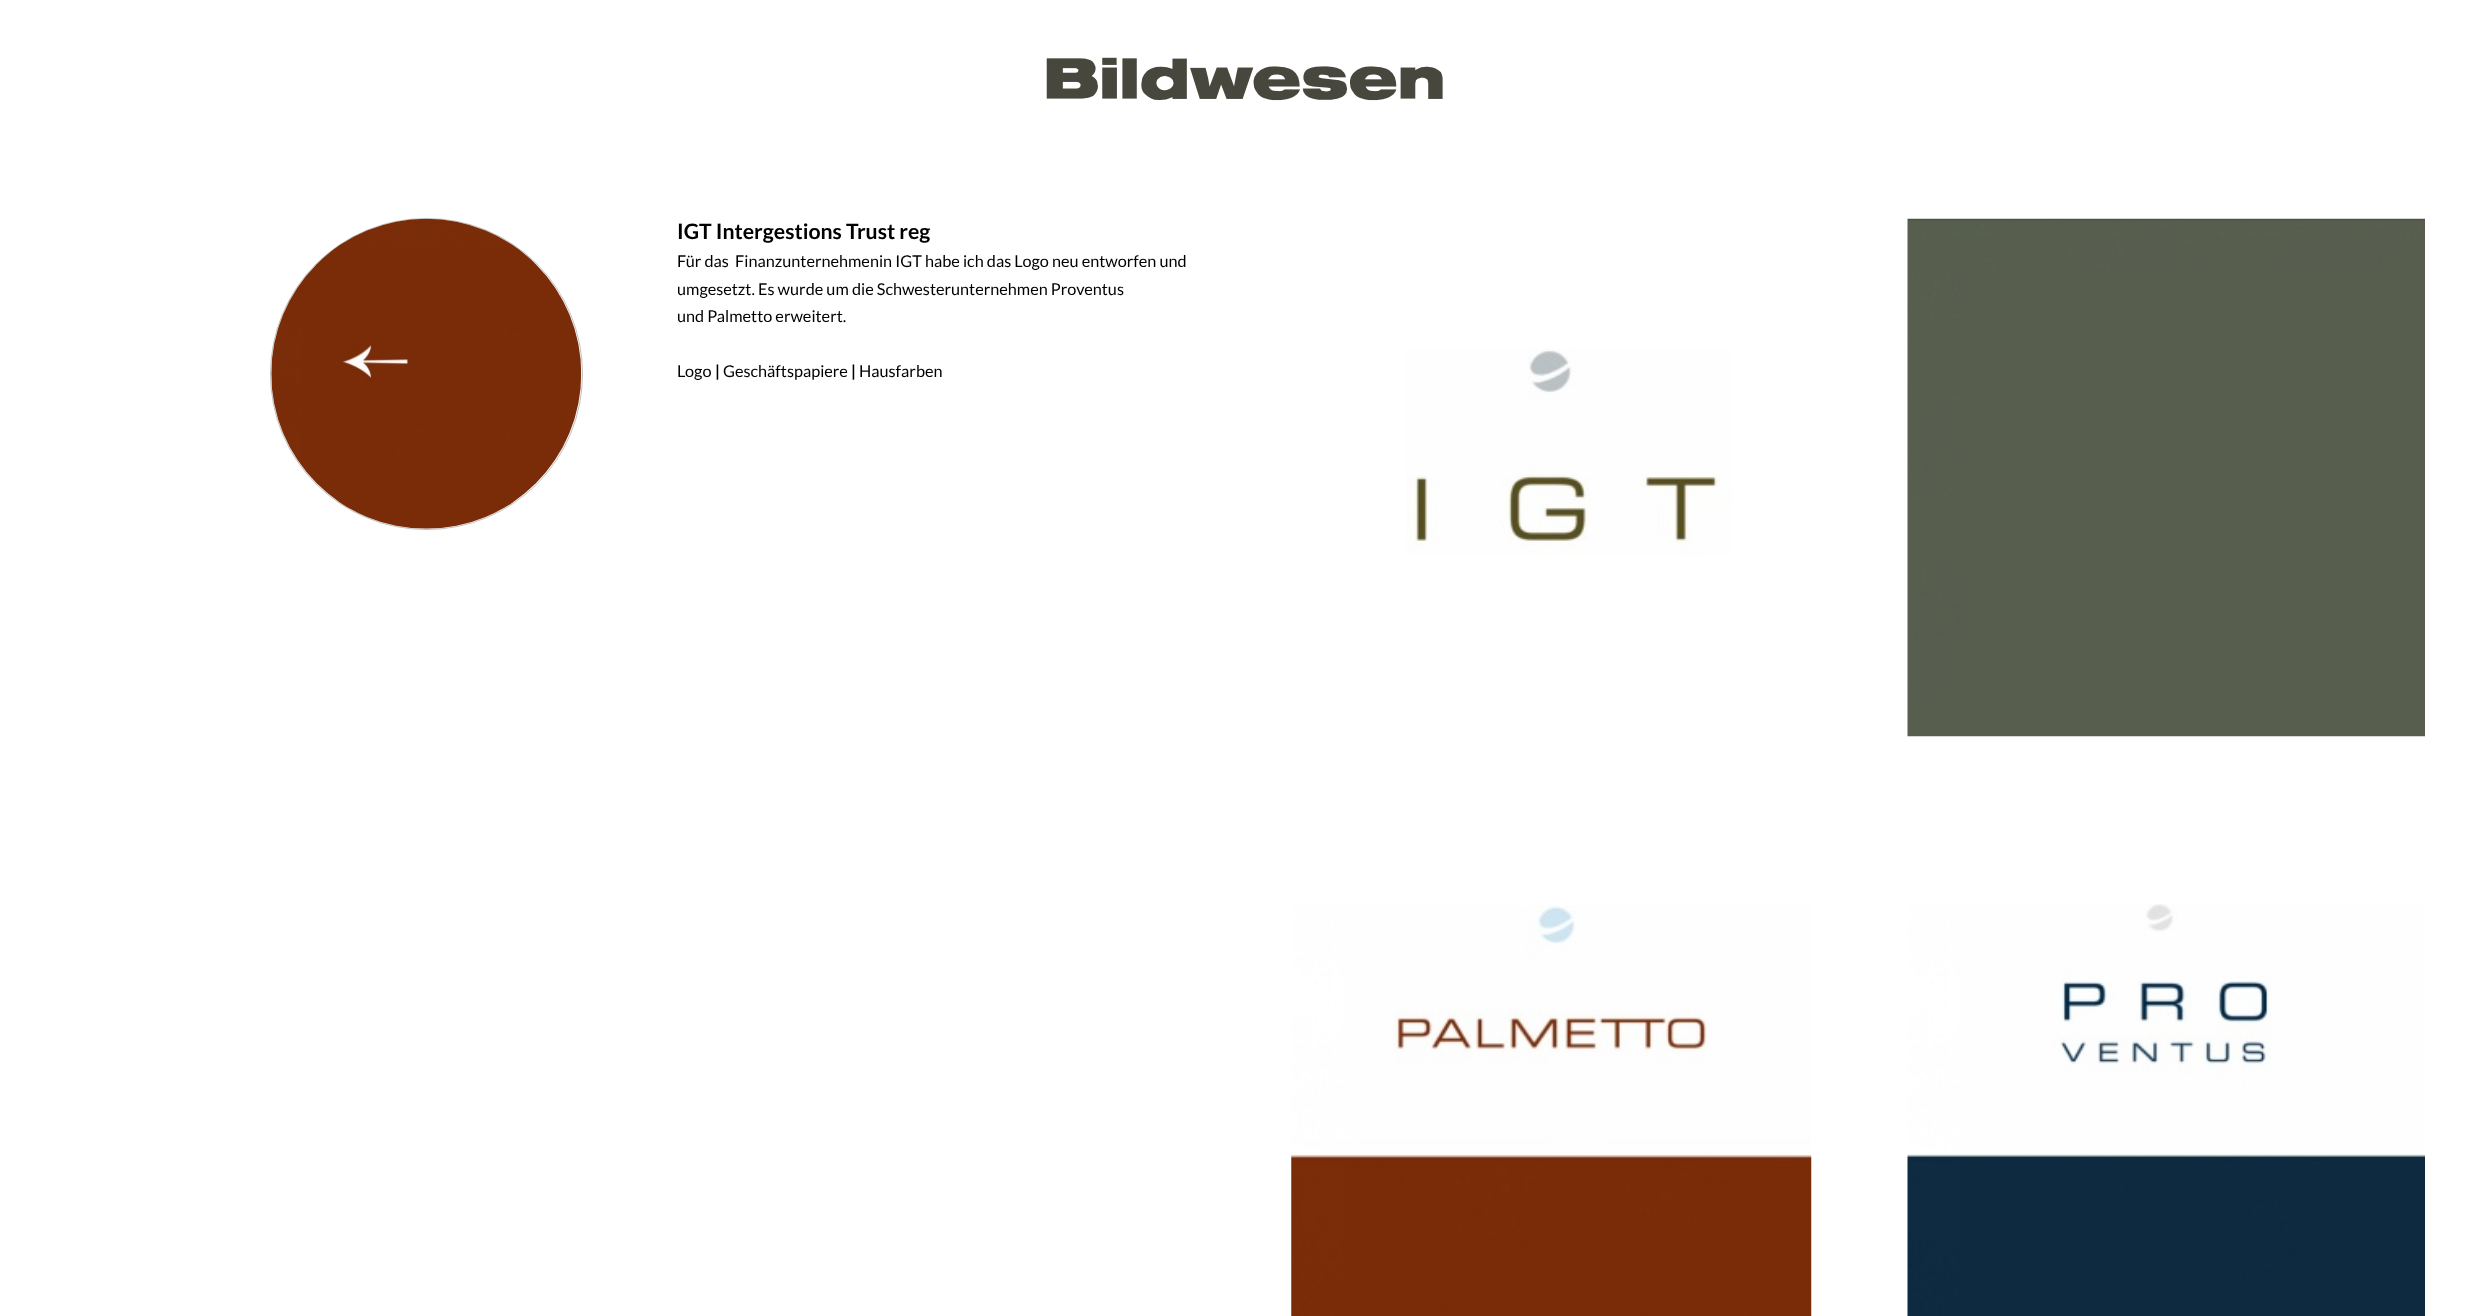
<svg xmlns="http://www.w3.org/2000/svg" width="2488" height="1316">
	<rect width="100%" height="100%" fill="#FFFFFF" />
	<image x="1046" y="57" width="397" height="44" href="assets/img1.png" />
	<rect x="270.5" y="218.5" width="312" height="311" rx="155.5" fill="none" stroke="#BFBFBF" />
	<image x="271" y="218" width="311" height="311" href="assets/img2.png" />
	<text x="677" y="239" font-family="Lato" font-size="21.25" font-weight="700" fill="#000000">IGT Intergestions Trust reg</text>
	<g font-family="Lato" font-size="16.25" fill="#000000">
		<text x="677" y="267" xml:space="preserve">Für das  Finanzunternehmenin IGT habe ich das Logo neu entworfen und</text>
		<text x="677" y="295">umgesetzt. Es wurde um die Schwesterunternehmen Proventus</text>
		<text x="677" y="322">und Palmetto erweitert.</text>
		<text x="677" y="377">Logo</text>
	</g>
	<text x="715" y="377" font-family="Lato" font-size="16.25" font-weight="700" fill="#000000">|</text>
	<text x="723" y="377" font-family="Lato" font-size="16.25" fill="#000000">Geschäftspapiere</text>
	<text x="851" y="377" font-family="Lato" font-size="16.25" font-weight="700" fill="#000000">|</text>
	<text x="859" y="377" font-family="Lato" font-size="16.25" fill="#000000">Hausfarben</text>
	<image x="1907" y="218" width="518" height="519" href="assets/img3.png" />
	<image x="1406" y="349" width="326" height="206" href="assets/img4.png" />
	<image x="1291" y="905" width="521" height="411" href="assets/img5.png" />
	<image x="1907" y="904" width="518" height="412" href="assets/img6.png" />
</svg>
